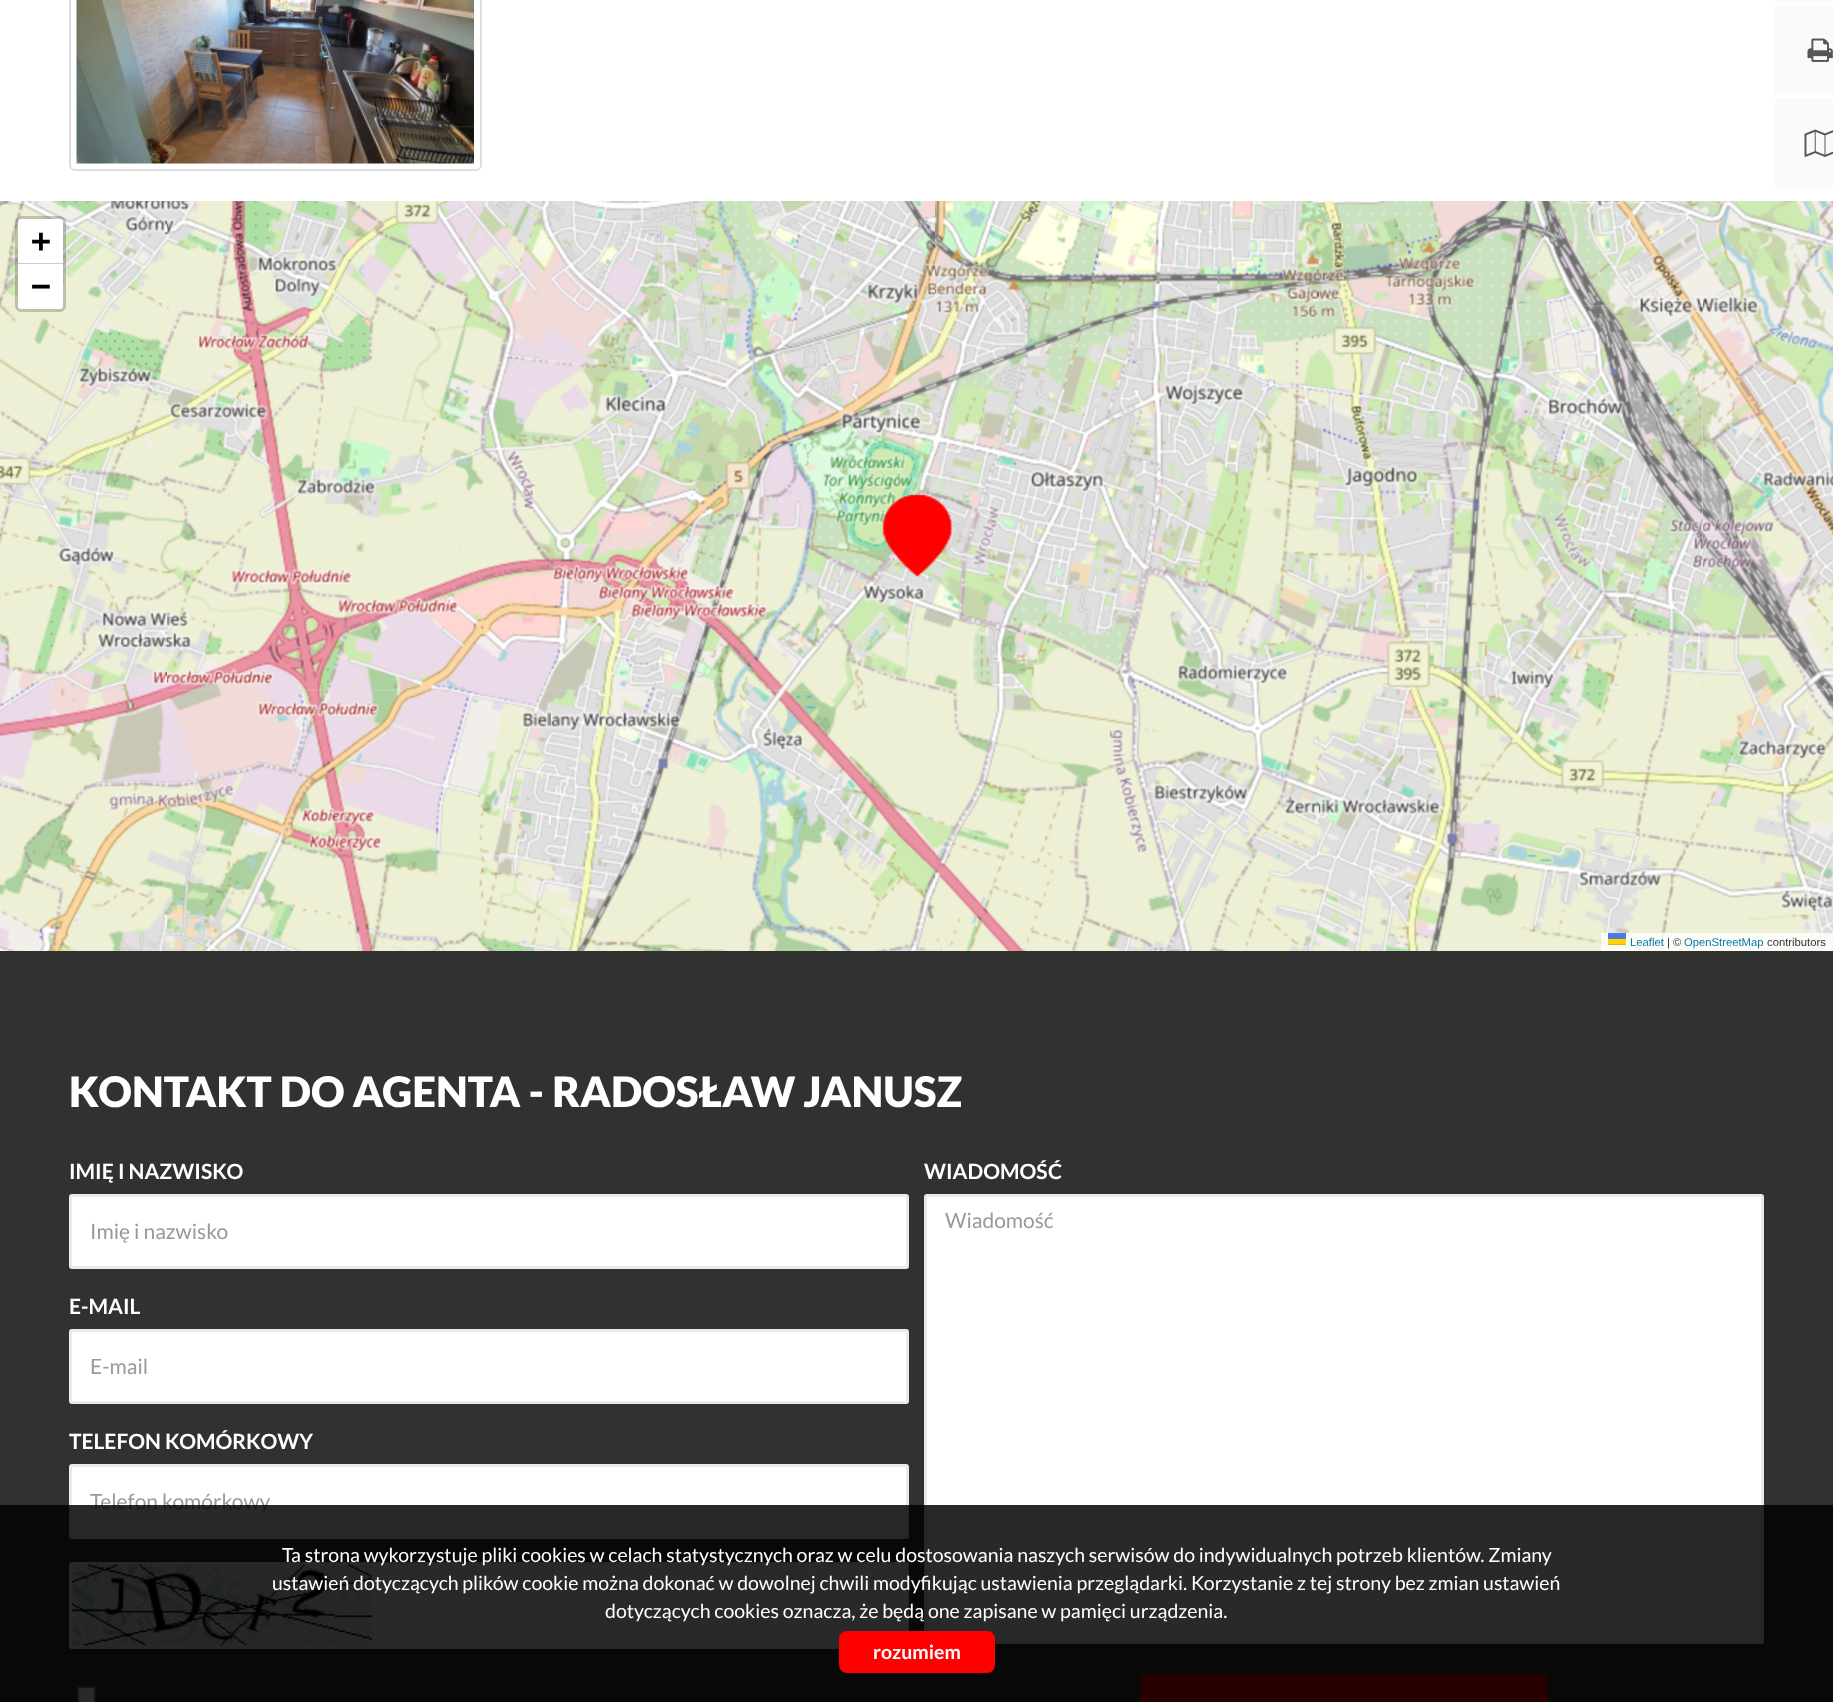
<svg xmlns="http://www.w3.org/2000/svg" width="1833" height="1702">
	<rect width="100%" height="100%" fill="#FFFFFF" />
	<rect x="70" y="-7" width="411" height="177" rx="5" fill="none" stroke="#DDDDDD" stroke-width="2" />
	<image x="76" y="0" width="398" height="164" href="assets/img1.png" />
	<rect x="1775" y="0" width="58" height="2" fill="#FAFAFA" />
	<rect x="1775" y="5" width="58" height="90" fill="#FAFAFA" />
	<image x="1807" y="38" width="26" height="24" href="assets/img2.png" />
	<rect x="1775" y="98" width="58" height="90" fill="#FAFAFA" />
	<image x="1804" y="129" width="29" height="28" href="assets/img3.png" />
	<rect x="0" y="305" width="1833" height="386" fill="#DDDDDD" />
	<image x="550" y="305" width="385" height="386" href="assets/img12.png" />
	<image x="166" y="305" width="385" height="386" href="assets/img11.png" />
	<image x="0" y="305" width="167" height="386" href="assets/img10.png" />
	<image x="0" y="201" width="167" height="106" href="assets/img4.png" />
	<image x="167" y="201" width="384" height="106" href="assets/img5.png" />
	<image x="934" y="305" width="385" height="386" href="assets/img13.png" />
	<image x="551" y="201" width="384" height="106" href="assets/img6.png" />
	<image x="935" y="201" width="384" height="106" href="assets/img7.png" />
	<image x="935" y="689" width="384" height="262" href="assets/img19.png" />
	<image x="1318" y="305" width="385" height="386" href="assets/img14.png" />
	<image x="1319" y="201" width="384" height="106" href="assets/img8.png" />
	<image x="1703" y="305" width="130" height="386" href="assets/img15.png" />
	<image x="1703" y="201" width="130" height="106" href="assets/img9.png" />
	<image x="0" y="689" width="167" height="262" href="assets/img16.png" />
	<image x="167" y="689" width="384" height="262" href="assets/img17.png" />
	<image x="551" y="689" width="384" height="262" href="assets/img18.png" />
	<image x="1319" y="689" width="384" height="262" href="assets/img20.png" />
	<image x="1703" y="689" width="130" height="262" href="assets/img21.png" />
	<image x="882" y="494" width="70" height="83" href="assets/img22.png" />
	<rect x="16.5" y="217.5" width="48" height="93" rx="4.5" fill="none" stroke="#000000" stroke-opacity="0.2" stroke-width="3" />
	<path d="M21 219H60C61.5 219 63 220.5 63 222V264H18V222C18 220.5 19.5 219 21 219Z" fill="#FFFFFF" />
	<rect x="18" y="263" width="45" height="1" fill="#CCCCCC" />
	<text x="31" y="252" font-family="DejaVu Sans Mono" font-size="33" font-weight="700" fill="#000000">+</text>
	<path d="M18 264H63V306C63 307.5 61.5 309 60 309H21C19.5 309 18 307.5 18 306Z" fill="#FFFFFF" />
	<text x="31" y="297" font-family="DejaVu Sans Mono" font-size="33" font-weight="700" fill="#000000">−</text>
	<rect x="1601" y="933" width="232" height="18" fill="#FFFFFF" fill-opacity="0.8" />
	<text x="1630" y="946" font-family="Liberation Sans" font-size="11.25" fill="#0078A8">Leaflet</text>
	<rect x="1608" y="933" width="18" height="6" fill="#4C7BE1" />
	<rect x="1608" y="939" width="18" height="5" fill="#FFD500" />
	<rect x="1608" y="944" width="18" height="1" fill="#E0BC00" />
	<text x="1667" y="946" font-family="Liberation Sans" font-size="11.25" fill="#333333">| ©</text>
	<text x="1684" y="946" font-family="Liberation Sans" font-size="11.25" fill="#0078A8">OpenStreetMap</text>
	<text x="1767" y="946" font-family="Liberation Sans" font-size="11.25" fill="#333333">contributors</text>
	<rect x="0" y="951" width="1833" height="751" fill="#313131" />
	<text x="69" y="1107" font-family="Lato" font-size="42" font-weight="900" fill="#FFFFFF">KONTAKT DO AGENTA - RADOSŁAW JANUSZ</text>
	<text x="69" y="1179" font-family="Lato" font-size="21" font-weight="700" fill="#FFFFFF">IMIĘ I NAZWISKO</text>
	<rect x="70.5" y="1195.5" width="837" height="72" rx="1.5" fill="#FFFFFF" stroke="#EAEAEA" stroke-width="3" />
	<text x="90" y="1239" font-family="Lato" font-size="21" fill="#999999">Imię i nazwisko</text>
	<text x="69" y="1314" font-family="Lato" font-size="21" font-weight="700" fill="#FFFFFF">E-MAIL</text>
	<rect x="70.5" y="1330.5" width="837" height="72" rx="1.5" fill="#FFFFFF" stroke="#EAEAEA" stroke-width="3" />
	<text x="90" y="1374" font-family="Lato" font-size="21" fill="#999999">E-mail</text>
	<text x="69" y="1449" font-family="Lato" font-size="21" font-weight="700" fill="#FFFFFF">TELEFON KOMÓRKOWY</text>
	<rect x="70.5" y="1465.5" width="837" height="72" rx="1.5" fill="#FFFFFF" stroke="#EAEAEA" stroke-width="3" />
	<text x="90" y="1509" font-family="Lato" font-size="21" fill="#999999">Telefon komórkowy</text>
	<path d="M72 1563H906C907 1563 908 1564 908 1564V1646H70V1564C70 1564 71 1563 72 1563Z" fill="#FFFFFF" />
	<rect x="70" y="1563" width="838" height="85" rx="2" fill="none" stroke="#F2F2F2" stroke-width="2" />
	<rect x="71" y="1646" width="768" height="1" fill="#F2F2F2" />
	<image x="72" y="1564" width="300" height="82" href="assets/img23.png" />
	<rect x="78" y="1687" width="17" height="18" rx="2" fill="#FFFFFF" stroke="#767676" stroke-width="2" />
	<text x="924" y="1179" font-family="Lato" font-size="21" font-weight="700" fill="#FFFFFF">WIADOMOŚĆ</text>
	<rect x="925.5" y="1195.5" width="837" height="447" rx="1.5" fill="#FFFFFF" stroke="#EAEAEA" stroke-width="3" />
	<text x="945" y="1228" font-family="Lato" font-size="21" fill="#999999">Wiadomość</text>
	<rect x="1140" y="1674" width="408" height="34" rx="6" fill="#FE0000" />
	<rect x="0" y="1505" width="1833" height="197" fill="#000000" fill-opacity="0.84" />
	<g font-family="Lato" font-size="19.5" fill="#FFFFFF">
		<text x="282" y="1562">Ta strona wykorzystuje pliki cookies w celach statystycznych oraz w celu dostosowania naszych serwisów do indywidualnych potrzeb klientów. Zmiany</text>
		<text x="272" y="1590">ustawień dotyczących plików cookie można dokonać w dowolnej chwili modyfikując ustawienia przeglądarki. Korzystanie z tej strony bez zmian ustawień</text>
		<text x="605" y="1618">dotyczących cookies oznacza, że będą one zapisane w pamięci urządzenia.</text>
	</g>
	<rect x="839" y="1631" width="156" height="42" rx="8" fill="#FE0000" />
	<text x="873" y="1659" font-family="Lato" font-size="19.5" font-weight="700" fill="#FFFFFF">rozumiem</text>
</svg>
